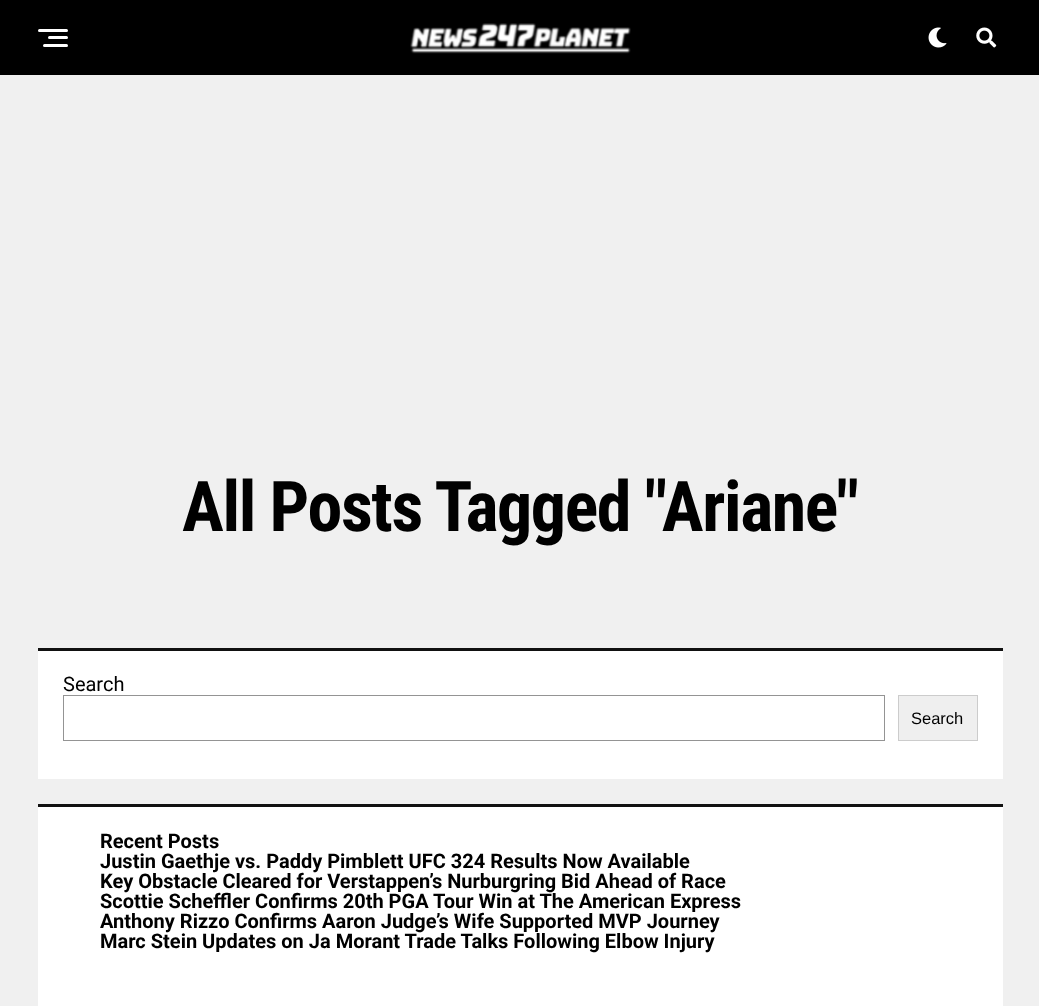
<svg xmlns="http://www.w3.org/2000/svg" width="1039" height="1006">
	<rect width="100%" height="100%" fill="#F0F0F0" />
	<rect x="0" y="0" width="1039" height="75" fill="#000000" />
	<rect x="38" y="29" width="30" height="3" rx="1.5" fill="#FFFFFF" />
	<rect x="48" y="36" width="20" height="3" rx="1.5" fill="#FFFFFF" />
	<rect x="43" y="44" width="25" height="3" rx="1.5" fill="#FFFFFF" />
	<image x="410" y="23" width="221" height="31" href="assets/img1.png" />
	<image x="928" y="27" width="19" height="21" href="assets/img2.png" />
	<image x="976" y="27" width="21" height="21" href="assets/img3.png" />
	<text x="182" y="531" font-family="Roboto Condensed" font-size="70" font-weight="700" letter-spacing="-1.4" fill="#000000">All Posts Tagged "Ariane"</text>
	<rect x="38" y="651" width="965" height="128" fill="#FFFFFF" />
	<rect x="38" y="648" width="965" height="3" fill="#111111" />
	<text x="63" y="691" font-family="Roboto" font-size="20" fill="#000000">Search</text>
	<rect x="63.5" y="695.5" width="821" height="45" fill="none" stroke="#949494" />
	<rect x="898.5" y="695.5" width="79" height="45" fill="#EFEFEF" stroke="#CCCCCC" />
	<text x="911" y="724" font-family="Liberation Sans" font-size="16.5" fill="#000000">Search</text>
	<rect x="38" y="807" width="965" height="199" fill="#FFFFFF" />
	<rect x="38" y="804" width="965" height="3" fill="#111111" />
	<g font-family="Roboto" font-size="20" font-weight="700" fill="#000000">
		<text x="100" y="848">Recent Posts</text>
		<text x="100" y="868">Justin Gaethje vs. Paddy Pimblett UFC 324 Results Now Available</text>
		<text x="100" y="888">Key Obstacle Cleared for Verstappen’s Nurburgring Bid Ahead of Race</text>
		<text x="100" y="908">Scottie Scheffler Confirms 20th PGA Tour Win at The American Express</text>
		<text x="100" y="928">Anthony Rizzo Confirms Aaron Judge’s Wife Supported MVP Journey</text>
		<text x="100" y="948">Marc Stein Updates on Ja Morant Trade Talks Following Elbow Injury</text>
	</g>
</svg>
